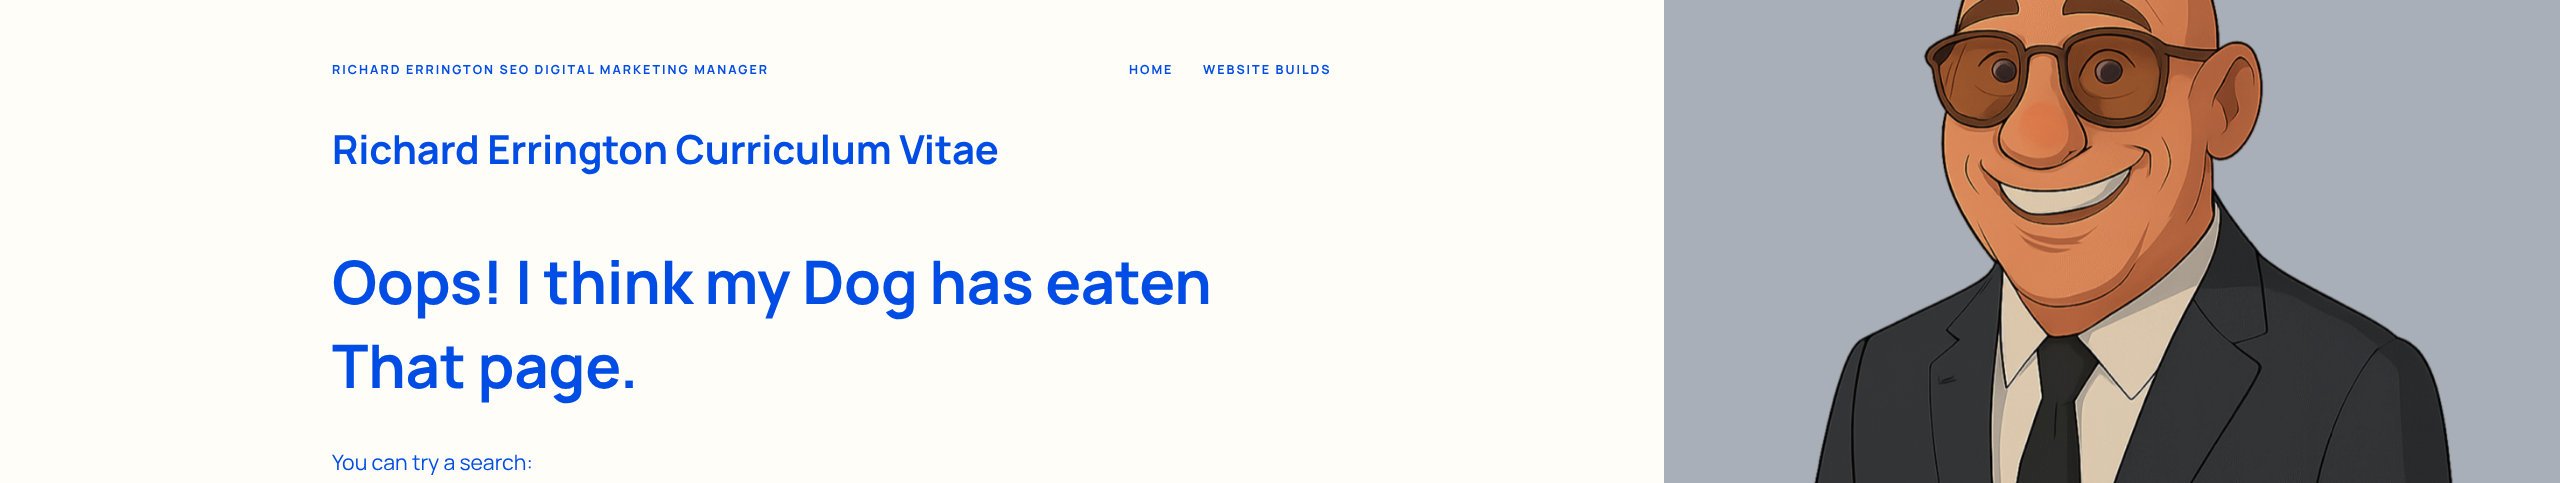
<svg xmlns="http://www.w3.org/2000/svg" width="2560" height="483">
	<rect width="100%" height="100%" fill="#FEFDF8" />
	<g font-family="Manrope" font-size="12.5" font-weight="700" letter-spacing="2" fill="#004DE5">
		<text x="332" y="74">RICHARD ERRINGTON SEO DIGITAL MARKETING MANAGER</text>
		<text x="1129" y="74">HOME</text>
		<text x="1203" y="74">WEBSITE BUILDS</text>
	</g>
	<text x="332" y="164" font-family="Manrope" font-size="40" font-weight="700" letter-spacing="-0.2" fill="#004DE5">Richard Errington Curriculum Vitae</text>
	<g font-family="Manrope" font-size="60" font-weight="700" letter-spacing="-0.2" fill="#004DE5">
		<text x="332" y="304">Oops! I think my Dog has eaten</text>
		<text x="332" y="388">That page.</text>
	</g>
	<text x="332" y="470" font-family="Manrope" font-size="21.25" fill="#004DE5">You can try a search:</text>
	<image x="1664" y="0" width="896" height="483" href="assets/img1.png" />
</svg>
